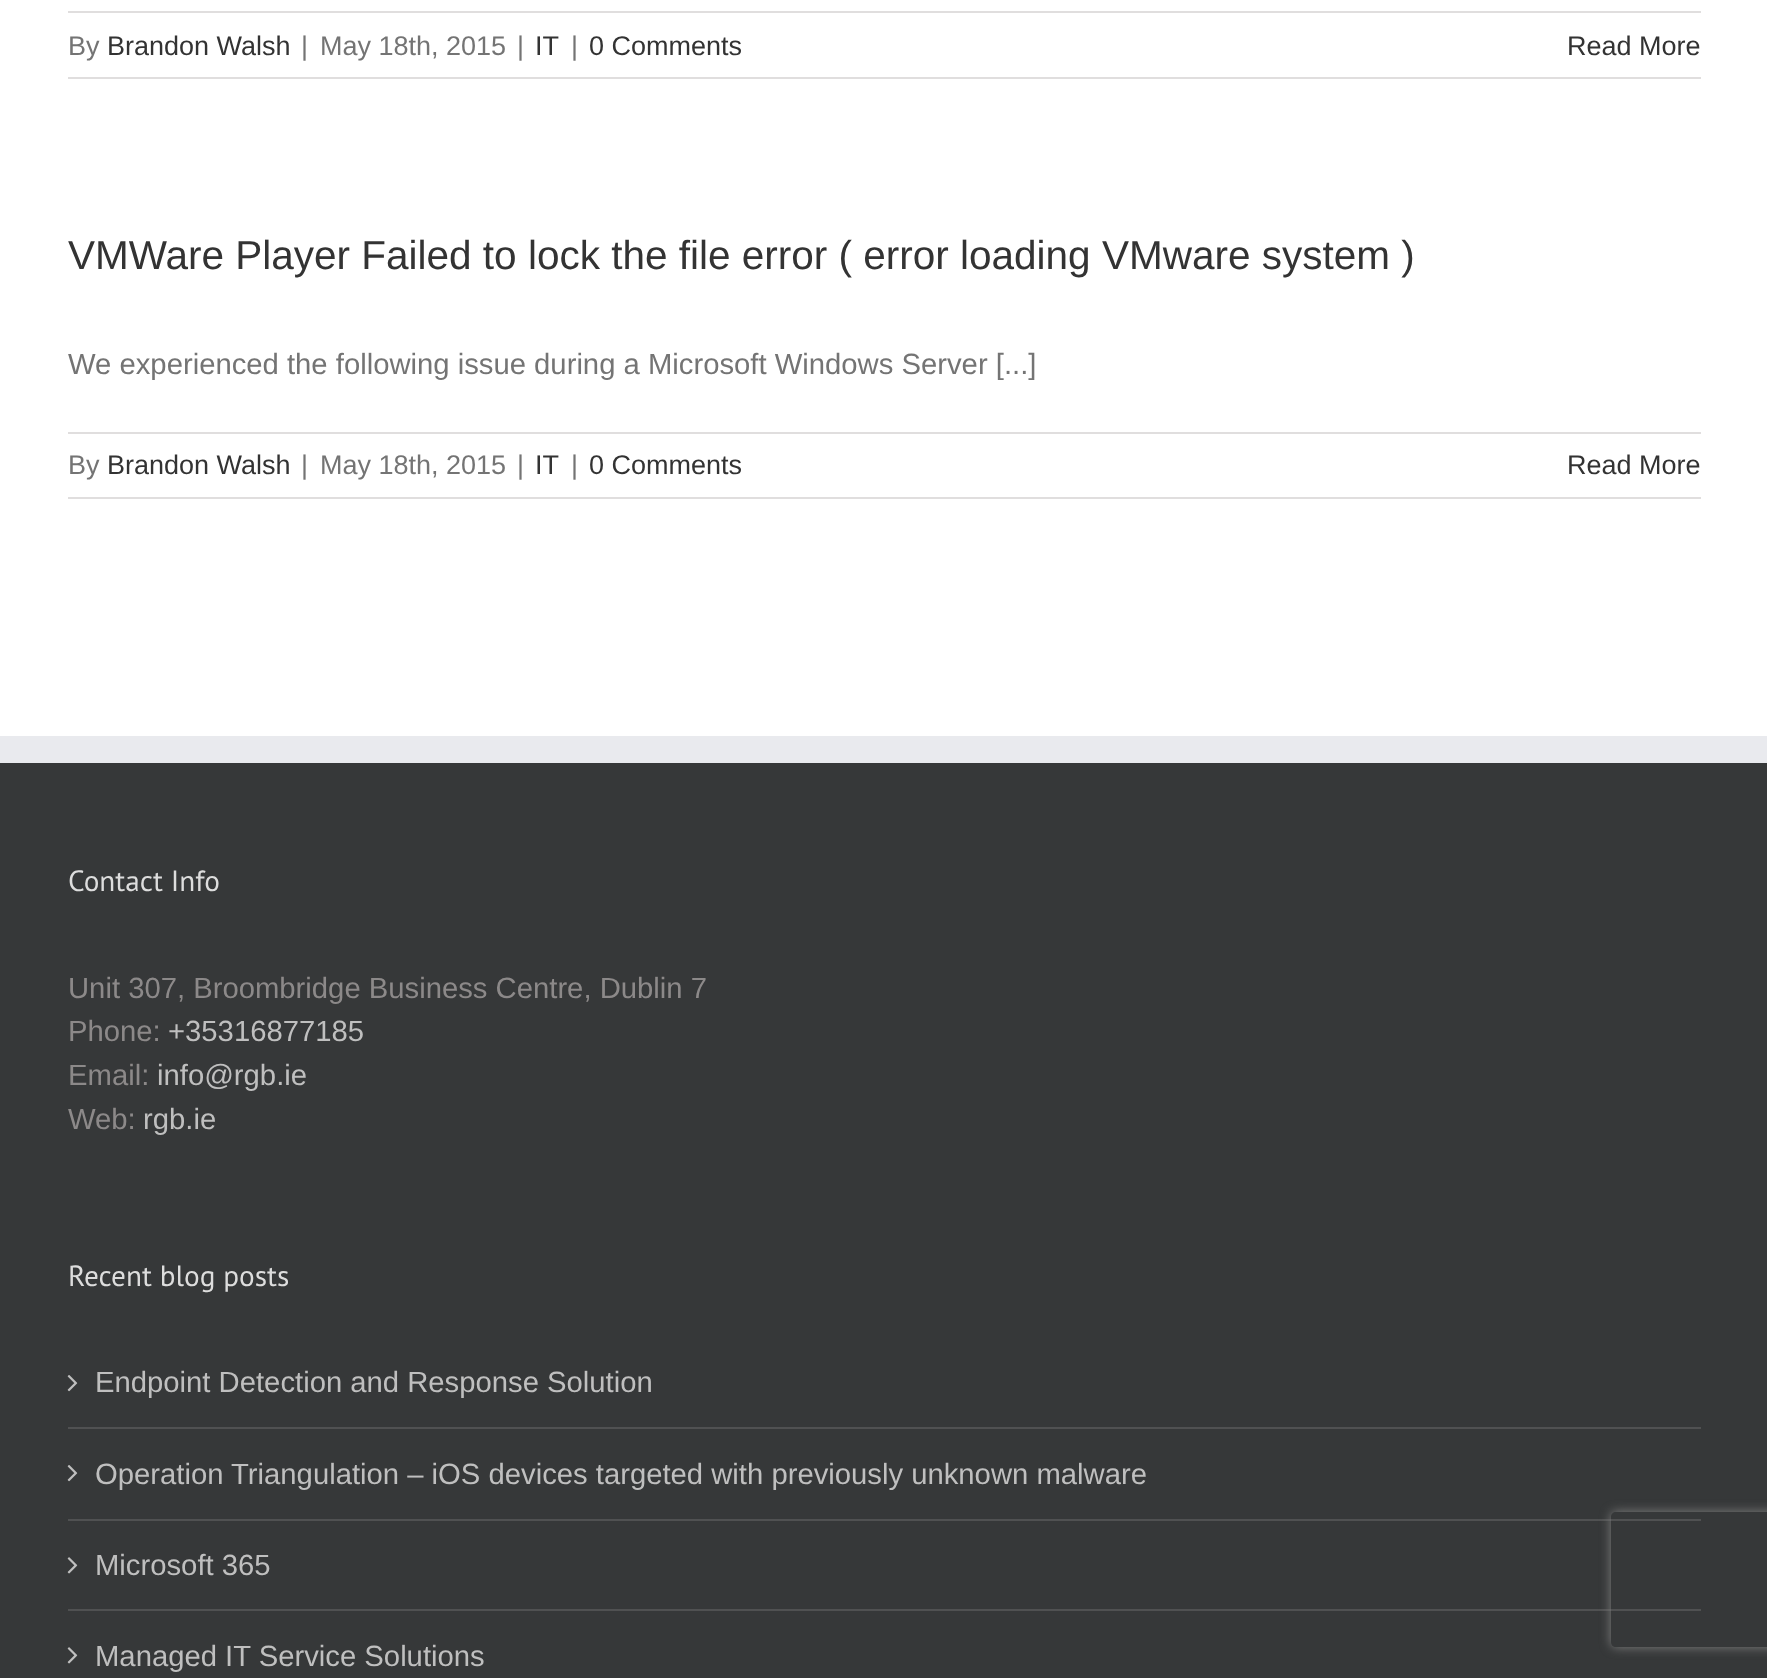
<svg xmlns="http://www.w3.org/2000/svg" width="1767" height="1678">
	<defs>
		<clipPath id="clip1"><path d="M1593 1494H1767V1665H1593ZM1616 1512H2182C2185 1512 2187 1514 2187 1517V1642C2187 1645 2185 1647 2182 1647H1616C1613 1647 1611 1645 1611 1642V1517C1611 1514 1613 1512 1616 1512Z" clip-rule="evenodd" /></clipPath>
	</defs>
	<rect width="100%" height="100%" fill="#FFFFFF" />
	<rect x="68" y="11" width="1633" height="2" fill="#E0DEDE" />
	<rect x="68" y="77" width="1633" height="2" fill="#E0DEDE" />
	<text x="68" y="55" font-family="Liberation Sans" font-size="27" fill="#747474">By</text>
	<text x="107" y="55" font-family="Liberation Sans" font-size="27" fill="#333333">Brandon Walsh</text>
	<g font-family="Liberation Sans" font-size="27" fill="#747474">
		<text x="301" y="55">|</text>
		<text x="320" y="55">May 18th, 2015</text>
		<text x="517" y="55">|</text>
	</g>
	<text x="535" y="55" font-family="Liberation Sans" font-size="27" fill="#333333">IT</text>
	<text x="571" y="55" font-family="Liberation Sans" font-size="27" fill="#747474">|</text>
	<g font-family="Liberation Sans" font-size="27" fill="#333333">
		<text x="589" y="55">0 Comments</text>
		<text x="1567" y="55">Read More</text>
	</g>
	<text x="68" y="269" font-family="Liberation Sans" font-size="40.5" fill="#333333">VMWare Player Failed to lock the file error ( error loading VMware system )</text>
	<text x="68" y="374" font-family="Liberation Sans" font-size="29.25" fill="#747474">We experienced the following issue during a Microsoft Windows Server [...]</text>
	<rect x="68" y="432" width="1633" height="2" fill="#E0DEDE" />
	<rect x="68" y="497" width="1633" height="2" fill="#E0DEDE" />
	<text x="68" y="474" font-family="Liberation Sans" font-size="27" fill="#747474">By</text>
	<text x="107" y="474" font-family="Liberation Sans" font-size="27" fill="#333333">Brandon Walsh</text>
	<g font-family="Liberation Sans" font-size="27" fill="#747474">
		<text x="301" y="474">|</text>
		<text x="320" y="474">May 18th, 2015</text>
		<text x="517" y="474">|</text>
	</g>
	<text x="535" y="474" font-family="Liberation Sans" font-size="27" fill="#333333">IT</text>
	<text x="571" y="474" font-family="Liberation Sans" font-size="27" fill="#747474">|</text>
	<g font-family="Liberation Sans" font-size="27" fill="#333333">
		<text x="589" y="474">0 Comments</text>
		<text x="1567" y="474">Read More</text>
	</g>
	<rect x="0" y="763" width="1767" height="915" fill="#363839" />
	<rect x="0" y="736" width="1767" height="27" fill="#E9EAEE" />
	<text x="68" y="891" font-family="PT Sans" font-size="29.25" fill="#DDDDDD">Contact Info</text>
	<g font-family="Liberation Sans" font-size="29.25" fill="#8C8989">
		<text x="68" y="998">Unit 307, Broombridge Business Centre, Dublin 7</text>
		<text x="68" y="1041">Phone:</text>
	</g>
	<text x="168" y="1041" font-family="Liberation Sans" font-size="29.25" fill="#BFBFBF">+35316877185</text>
	<text x="68" y="1085" font-family="Liberation Sans" font-size="29.25" fill="#8C8989">Email:</text>
	<text x="157" y="1085" font-family="Liberation Sans" font-size="29.25" fill="#BFBFBF">info@rgb.ie</text>
	<text x="68" y="1129" font-family="Liberation Sans" font-size="29.25" fill="#8C8989">Web:</text>
	<text x="143" y="1129" font-family="Liberation Sans" font-size="29.25" fill="#BFBFBF">rgb.ie</text>
	<text x="68" y="1286" font-family="PT Sans" font-size="29.25" fill="#DDDDDD">Recent blog posts</text>
	<rect x="68" y="1427" width="1633" height="2" fill="#505152" />
	<image x="67" y="1375" width="11" height="17" href="assets/img1.png" />
	<text x="95" y="1392" font-family="Liberation Sans" font-size="29.25" fill="#BFBFBF">Endpoint Detection and Response Solution</text>
	<rect x="68" y="1519" width="1633" height="2" fill="#505152" />
	<image x="67" y="1465" width="11" height="17" href="assets/img1.png" />
	<text x="95" y="1484" font-family="Liberation Sans" font-size="29.25" fill="#BFBFBF">Operation Triangulation – iOS devices targeted with previously unknown malware</text>
	<rect x="68" y="1609" width="1633" height="2" fill="#505152" />
	<image x="67" y="1557" width="11" height="17" href="assets/img2.png" />
	<text x="95" y="1575" font-family="Liberation Sans" font-size="29.25" fill="#BFBFBF">Microsoft 365</text>
	<image x="67" y="1647" width="11" height="17" href="assets/img2.png" />
	<text x="95" y="1666" font-family="Liberation Sans" font-size="29.25" fill="#BFBFBF">Managed IT Service Solutions</text>
	<g clip-path="url(#clip1)">
		<rect x="1611" y="1512" width="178" height="135" rx="5" fill="#808080" filter="blur(5.5px)" />
	</g>
</svg>
